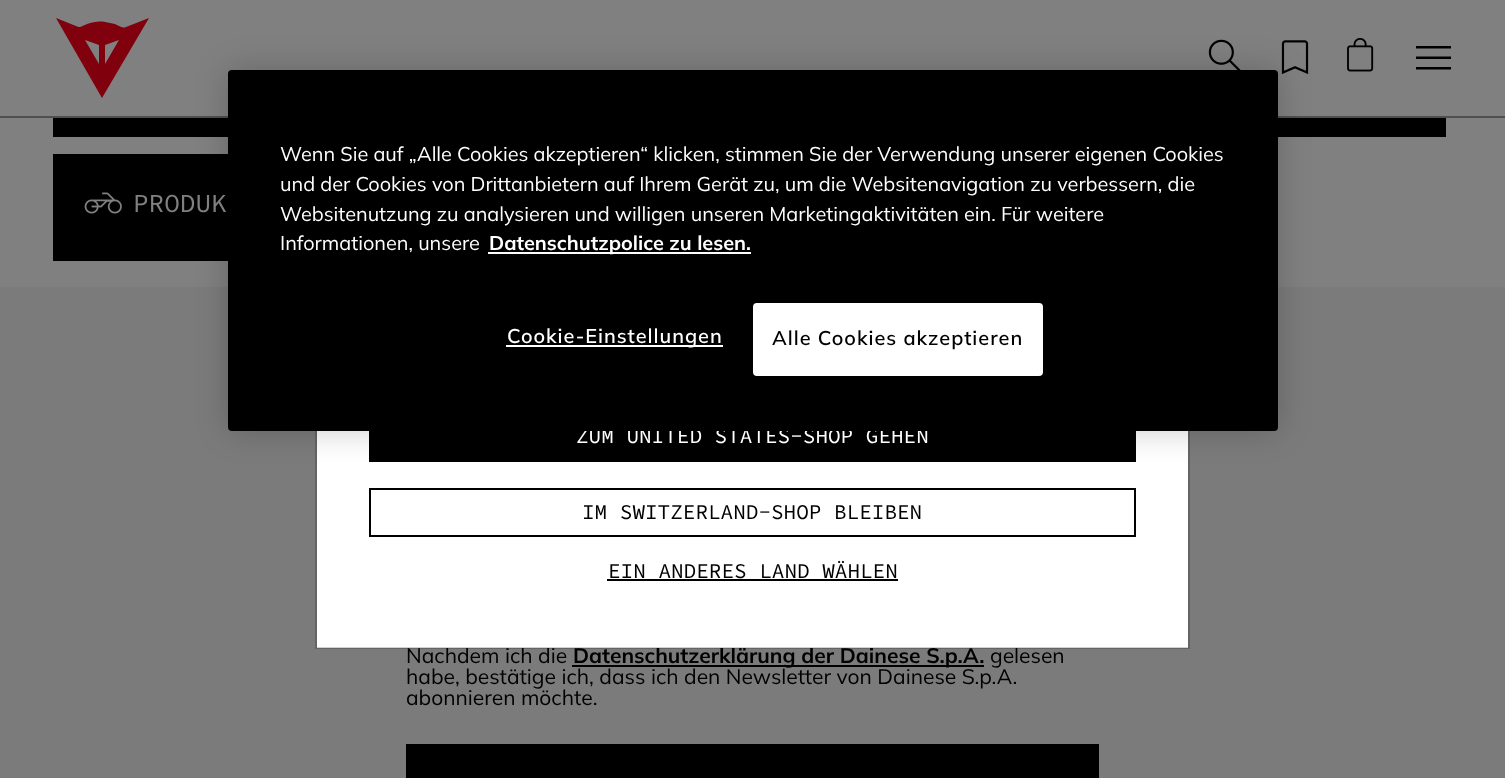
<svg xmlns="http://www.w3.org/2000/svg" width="1505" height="778">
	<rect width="100%" height="100%" fill="#7B7B7B" />
	<rect x="0" y="0" width="1505" height="116" fill="#808080" />
	<rect x="0" y="116" width="1505" height="2" fill="#4F4F4E" />
	<image x="1208" y="39" width="33" height="31" href="assets/img1.png" />
	<image x="1281" y="40" width="28" height="34" href="assets/img2.png" />
	<rect x="0" y="118" width="1505" height="169" fill="#808080" />
	<rect x="53" y="118" width="175" height="19" fill="#000000" />
	<rect x="1278" y="118" width="168" height="19" fill="#000000" />
	<rect x="53" y="154" width="175" height="107" fill="#000000" />
	<text x="406" y="663" font-family="Mulish" font-size="21" fill="#000000">Nachdem ich die</text>
	<rect x="572" y="665" width="412" height="2" fill="#000000" />
	<text x="573" y="663" font-family="Mulish" font-size="21" font-weight="700" fill="#000000">Datenschutzerklärung der Dainese S.p.A.</text>
	<text x="990" y="663" font-family="Mulish" font-size="21" fill="#000000">gelesen</text>
	<rect x="317" y="431" width="871" height="217" fill="#FFFFFF" />
	<rect x="316" y="131" width="873" height="517" fill="none" stroke="#000000" stroke-opacity="0.18" stroke-width="2" />
	<rect x="369" y="431" width="767" height="31" fill="#000000" />
	<rect x="228" y="70" width="1050" height="361" rx="4" fill="#000000" fill-opacity="0.2" filter="blur(16px)" />
	<text x="576" y="443" font-family="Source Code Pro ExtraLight" font-size="21" fill="#FFFFFF">ZUM UNITED STATES-SHOP GEHEN</text>
	<rect x="228" y="70" width="1050" height="361" rx="4" fill="#000000" />
	<g font-family="Mulish" font-size="19.9" fill="#FFFFFF">
		<text x="280" y="161">Wenn Sie auf „Alle Cookies akzeptieren“ klicken, stimmen Sie der Verwendung unserer eigenen Cookies</text>
		<text x="280" y="191">und der Cookies von Drittanbietern auf Ihrem Gerät zu, um die Websitenavigation zu verbessern, die</text>
		<text x="280" y="221">Websitenutzung zu analysieren und willigen unseren Marketingaktivitäten ein. Für weitere</text>
		<text x="280" y="250">Informationen, unsere</text>
	</g>
	<rect x="488" y="252" width="263" height="2" fill="#FFFFFF" />
	<text x="489" y="250" font-family="Mulish" font-size="19.9" font-weight="700" fill="#FFFFFF">Datenschutzpolice zu lesen.</text>
	<rect x="506" y="345" width="217" height="2" fill="#FFFFFF" />
	<text x="507" y="343" font-family="Mulish" font-size="19.9" font-weight="600" letter-spacing="1" fill="#FFFFFF">Cookie-Einstellungen</text>
	<rect x="754" y="304" width="288" height="71" rx="3" fill="#FFFFFF" stroke="#FFFFFF" stroke-width="2" />
	<text x="772" y="345" font-family="Mulish" font-size="19.9" font-weight="600" letter-spacing="1" fill="#000000">Alle Cookies akzeptieren</text>
	<path d="M126 27L149 18L102 98L56 18L71 24C81 28 78 28 87 24C93 22 99 21 105 22L115 24C118 25 122 29 126 27ZM99 64V45L85 40ZM105 64L119 40L105 45Z" fill="#80000D" />
	<image x="1347" y="38" width="27" height="34" href="assets/img3.png" />
	<path d="M1416 69.5V67H1451V69.5ZM1416 59V56.5H1451V59ZM1416 48.5V46H1451V48.5Z" fill="#000000" />
	<image x="84" y="192" width="38" height="22" href="assets/img4.png" />
	<text x="133" y="212" font-family="Source Code Pro ExtraLight" font-size="26" fill="#808080">PRODUK</text>
	<g font-family="Mulish" font-size="21" fill="#000000">
		<text x="406" y="684">habe, bestätige ich, dass ich den Newsletter von Dainese S.p.A.</text>
		<text x="406" y="705">abonnieren möchte.</text>
	</g>
	<rect x="406" y="744" width="693" height="34" fill="#000000" />
	<rect x="370" y="489" width="765" height="47" fill="none" stroke="#000000" stroke-width="2" />
	<g font-family="Source Code Pro ExtraLight" font-size="21" fill="#000000">
		<text x="582" y="519">IM SWITZERLAND-SHOP BLEIBEN</text>
		<text x="608" y="578">EIN ANDERES LAND WÄHLEN</text>
	</g>
	<rect x="607" y="579" width="291" height="2" fill="#000000" />
</svg>
